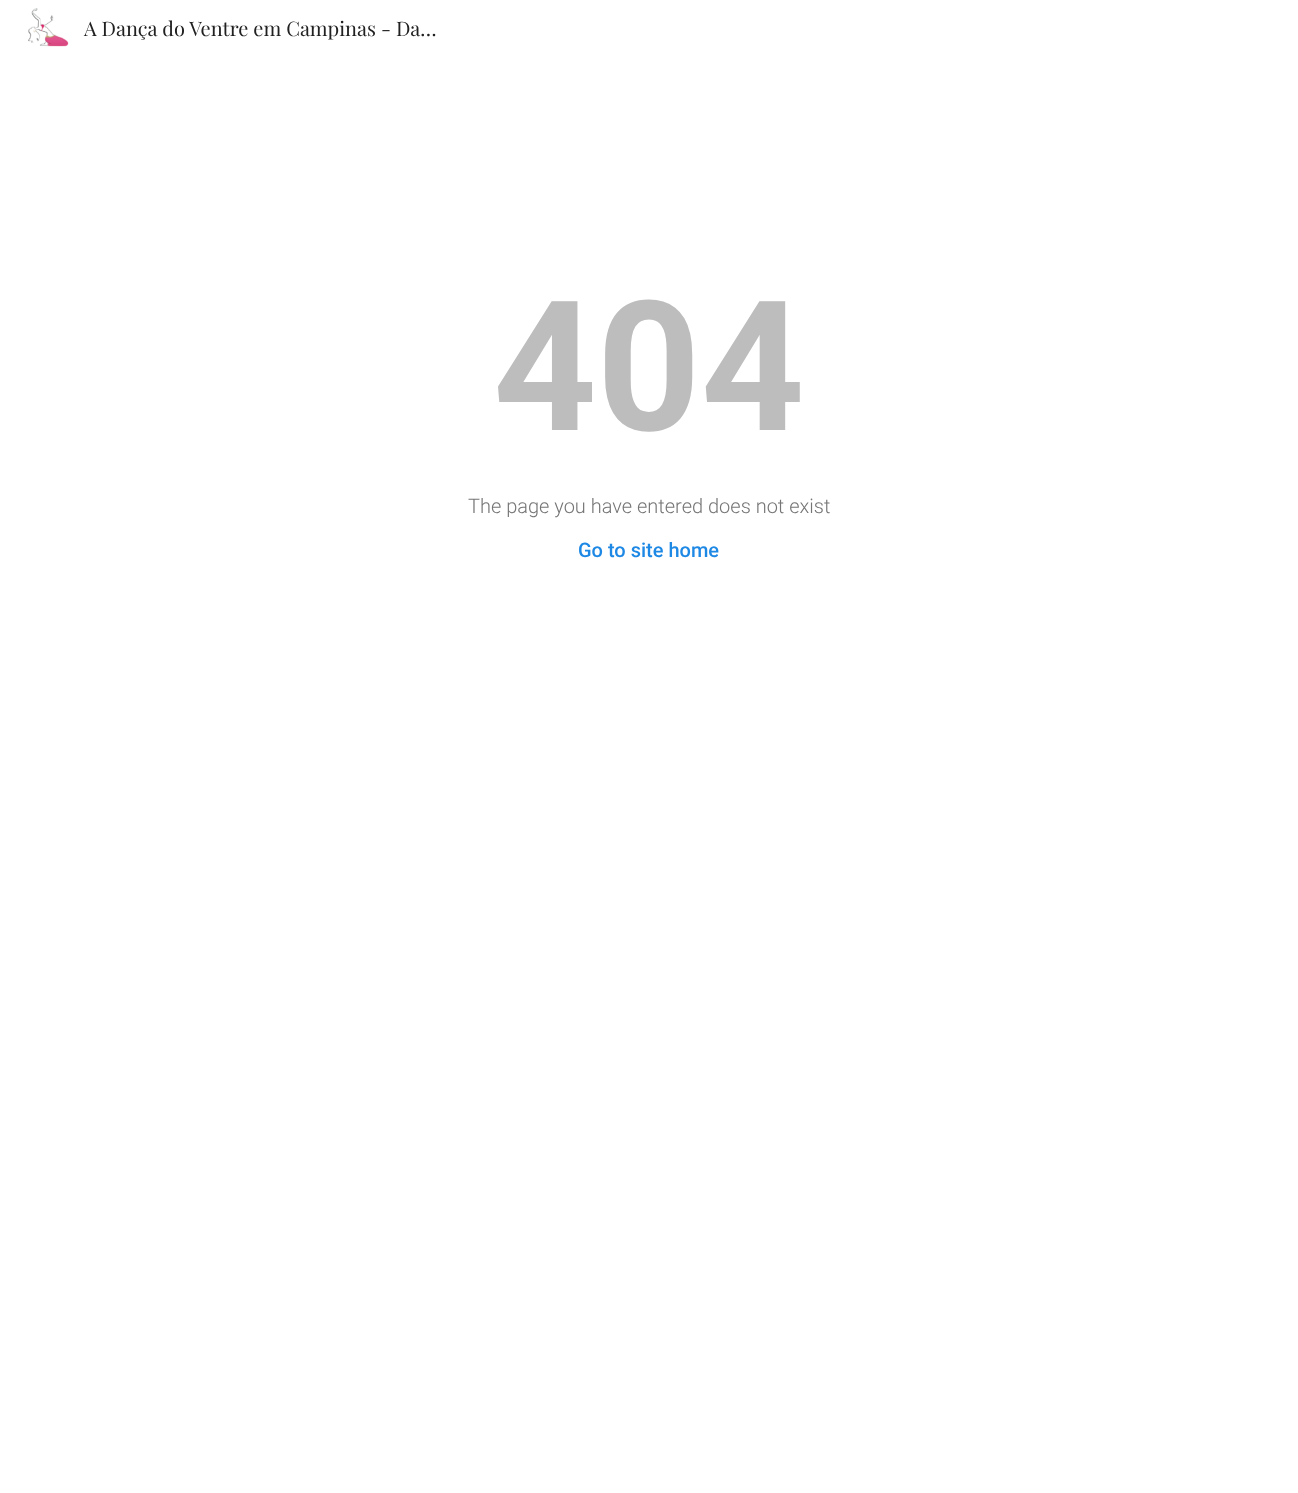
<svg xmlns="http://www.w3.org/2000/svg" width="1298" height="1493">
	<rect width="100%" height="100%" fill="#FFFFFF" />
	<image x="28" y="8" width="41" height="39" href="assets/img1.png" />
	<text x="84" y="36" font-family="Playfair Display" font-size="20" fill="#212121">A Dança do Ventre em Campinas - Da…</text>
	<text x="493" y="430" font-family="Roboto" font-size="181" font-weight="700" fill="#BDBDBD">404</text>
	<text x="468" y="513" font-family="Roboto" font-size="20" font-weight="300" fill="#757575">The page you have entered does not exist</text>
	<text x="578" y="557" font-family="Roboto" font-size="20" font-weight="500" fill="#1E88E5">Go to site home</text>
</svg>
